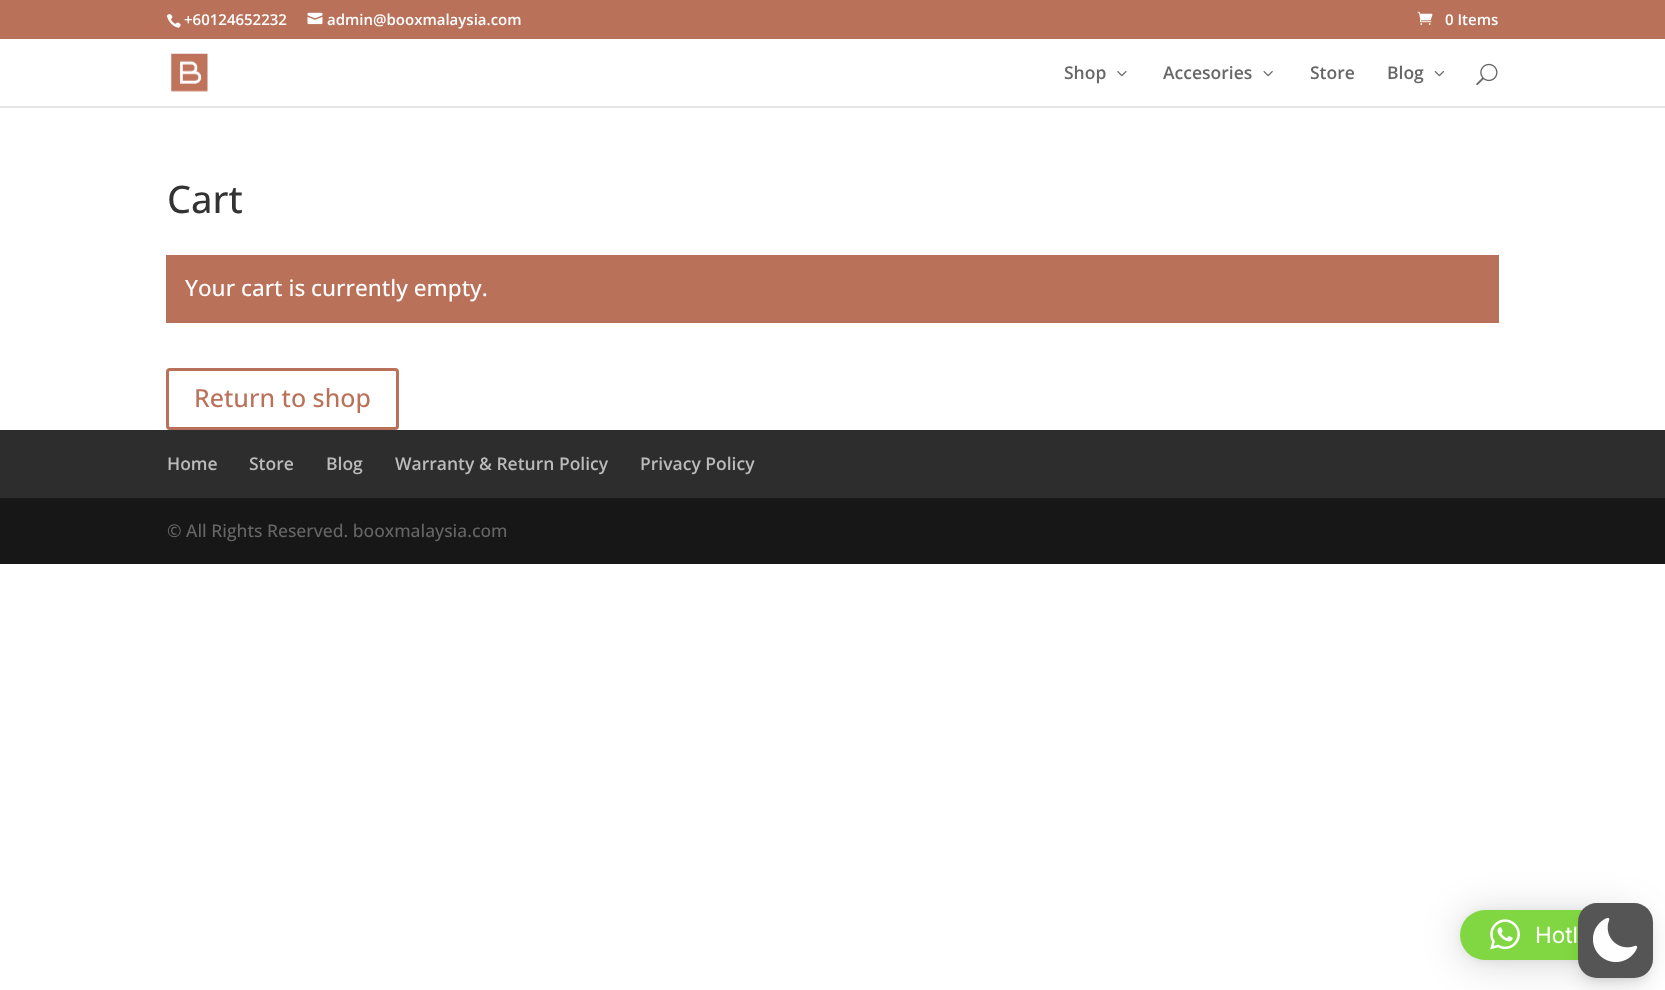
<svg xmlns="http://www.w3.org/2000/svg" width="1665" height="990">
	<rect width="100%" height="100%" fill="#FFFFFF" />
	<rect x="0" y="0" width="1665" height="39" fill="#B97159" />
	<image x="166" y="14" width="15" height="14" href="assets/img1.png" />
	<text x="184" y="25" font-family="Open Sans" font-size="15" font-weight="600" fill="#FFFFFF">+60124652232</text>
	<image x="307" y="12" width="16" height="13" href="assets/img2.png" />
	<text x="327" y="25" font-family="Open Sans" font-size="15" font-weight="600" fill="#FFFFFF">admin@booxmalaysia.com</text>
	<image x="1417" y="11" width="16" height="14" href="assets/img3.png" />
	<text x="1445" y="25" font-family="Open Sans" font-size="15" font-weight="600" fill="#FFFFFF">0 Items</text>
	<rect x="0" y="106" width="1665" height="2" fill="#E6E6E6" />
	<image x="171" y="53" width="37" height="39" href="assets/img4.png" />
	<text x="1064" y="79" font-family="Open Sans" font-size="17.5" font-weight="600" fill="#666666">Shop</text>
	<image x="1117" y="71" width="10" height="6" href="assets/img5.png" />
	<text x="1163" y="79" font-family="Open Sans" font-size="17.5" font-weight="600" fill="#666666">Accesories</text>
	<image x="1263" y="71" width="10" height="6" href="assets/img6.png" />
	<g font-family="Open Sans" font-size="17.5" font-weight="600" fill="#666666">
		<text x="1310" y="79">Store</text>
		<text x="1387" y="79">Blog</text>
	</g>
	<image x="1434" y="71" width="10" height="6" href="assets/img7.png" />
	<image x="1476" y="63" width="22" height="23" href="assets/img8.png" />
	<text x="167" y="213" font-family="Open Sans" font-size="38" font-weight="500" fill="#333333">Cart</text>
	<rect x="166" y="255" width="1333" height="68" fill="#B97159" />
	<text x="185" y="296" font-family="Open Sans" font-size="22.5" font-weight="500" fill="#FFFFFF">Your cart is currently empty.</text>
	<rect x="167.5" y="369.5" width="230" height="59" rx="2.5" fill="none" stroke="#B97159" stroke-width="3" />
	<text x="194" y="407" font-family="Open Sans" font-size="25" font-weight="500" fill="#B97159">Return to shop</text>
	<rect x="0" y="430" width="1665" height="68" fill="#2D2D2D" />
	<g font-family="Open Sans" font-size="17.5" font-weight="600" fill="#BBBBBB">
		<text x="167" y="470">Home</text>
		<text x="249" y="470">Store</text>
		<text x="326" y="470">Blog</text>
		<text x="395" y="470">Warranty &amp; Return Policy</text>
		<text x="640" y="470">Privacy Policy</text>
	</g>
	<rect x="0" y="498" width="1665" height="66" fill="#171717" />
	<text x="167" y="537" font-family="Open Sans" font-size="17.5" font-weight="500" fill="#666666">© All Rights Reserved. booxmalaysia.com</text>
	<rect x="1460" y="913" width="180" height="50" rx="25" fill="#000000" fill-opacity="0.16" filter="blur(20px)" />
	<rect x="1460" y="911" width="180" height="50" rx="25" fill="#000000" fill-opacity="0.06" filter="blur(4px)" />
	<rect x="1460" y="910" width="180" height="50" rx="25" fill="#81D742" />
	<rect x="1583" y="913" width="65" height="65" rx="14" fill="#000000" fill-opacity="0.1" filter="blur(4px)" />
	<rect x="1581" y="919" width="68" height="67" rx="15" fill="#000000" fill-opacity="0.1" filter="blur(9.5px)" />
	<rect x="1578" y="903" width="75" height="75" rx="19" fill="#555555" />
	<image x="1593" y="918" width="45" height="45" href="assets/img9.png" />
	<image x="1490" y="919" width="30" height="31" href="assets/img10.png" />
	<text x="1535" y="943" font-family="Inter" font-size="22.5" fill="#FFFFFF">Hotl</text>
</svg>
